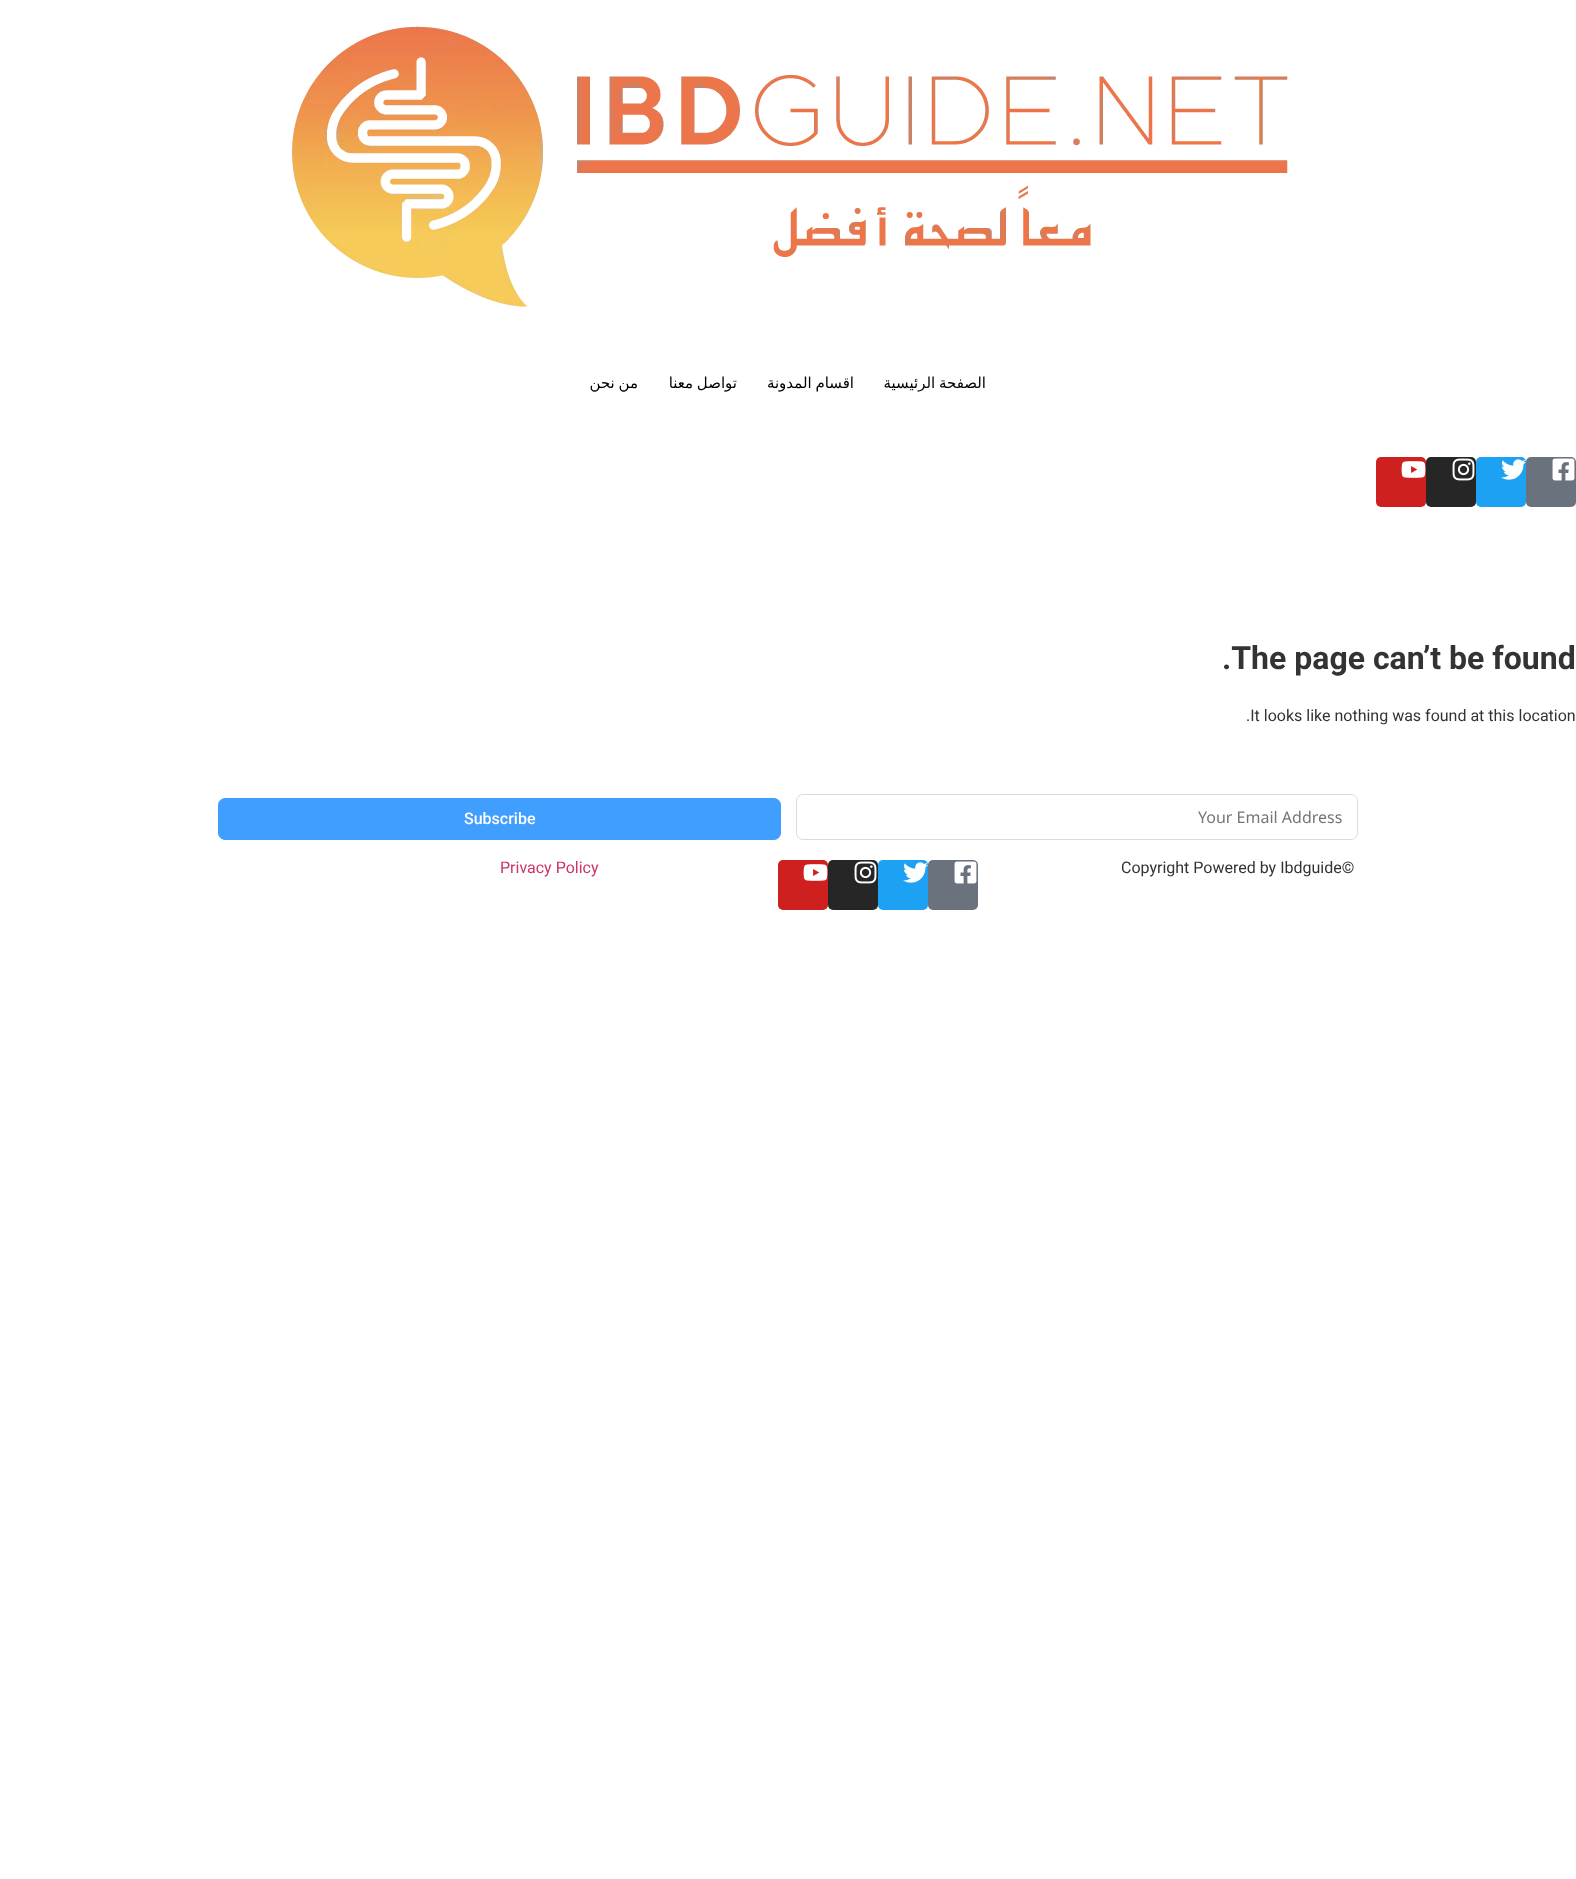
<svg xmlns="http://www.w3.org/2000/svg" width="1576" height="1879">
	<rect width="100%" height="100%" fill="#FFFFFF" />
	<image x="292" y="26" width="996" height="281" href="assets/img1.png" />
	<g font-family="DejaVu Sans" font-size="15" direction="rtl" fill="#000000">
		<text x="638" y="388" word-spacing="-1">من نحن</text>
		<text x="737" y="388" word-spacing="-1">تواصل معنا</text>
		<text x="854" y="388" word-spacing="-1">اقسام المدونة</text>
		<text x="986" y="388" word-spacing="-1">الصفحة الرئيسية</text>
	</g>
	<rect x="1376" y="457" width="50" height="50" rx="5" fill="#CD201F" />
	<image x="1401" y="461" width="25" height="17" href="assets/img2.png" />
	<rect x="1426" y="457" width="50" height="50" rx="5" fill="#262626" />
	<image x="1452" y="458" width="23" height="23" href="assets/img3.png" />
	<rect x="1476" y="457" width="50" height="50" rx="5" fill="#1DA1F2" />
	<image x="1501" y="459" width="25" height="21" href="assets/img4.png" />
	<rect x="1526" y="457" width="50" height="50" rx="5" fill="#69727D" />
	<image x="1552" y="458" width="23" height="23" href="assets/img5.png" />
	<text x="1222" y="669" font-family="Roboto" font-size="32" font-weight="700" fill="#333333">.The page can’t be found</text>
	<text x="1246" y="721" font-family="Roboto" font-size="16" fill="#333333">.It looks like nothing was found at this location</text>
	<rect x="218.5" y="798.5" width="562" height="41" rx="6.5" fill="#409EFF" stroke="#409EFF" />
	<text x="464" y="824" font-family="Roboto" font-size="16" font-weight="500" fill="#FFFFFF">Subscribe</text>
	<rect x="796.5" y="794.5" width="561" height="45" rx="6.5" fill="none" stroke="#DADBDD" />
	<text x="1198" y="823" font-family="Noto Sans" font-size="16" fill="#757575">Your Email Address</text>
	<text x="500" y="873" font-family="Roboto" font-size="16" fill="#CC3366">Privacy Policy</text>
	<rect x="778" y="860" width="50" height="50" rx="5" fill="#CD201F" />
	<image x="803" y="864" width="25" height="17" href="assets/img2.png" />
	<rect x="828" y="860" width="50" height="50" rx="5" fill="#262626" />
	<image x="854" y="861" width="23" height="23" href="assets/img3.png" />
	<rect x="878" y="860" width="50" height="50" rx="5" fill="#1DA1F2" />
	<image x="903" y="862" width="25" height="21" href="assets/img4.png" />
	<rect x="928" y="860" width="50" height="50" rx="5" fill="#69727D" />
	<image x="954" y="861" width="23" height="23" href="assets/img5.png" />
	<text x="1121" y="873" font-family="Roboto" font-size="16" fill="#333333">Copyright Powered by Ibdguide©</text>
</svg>
